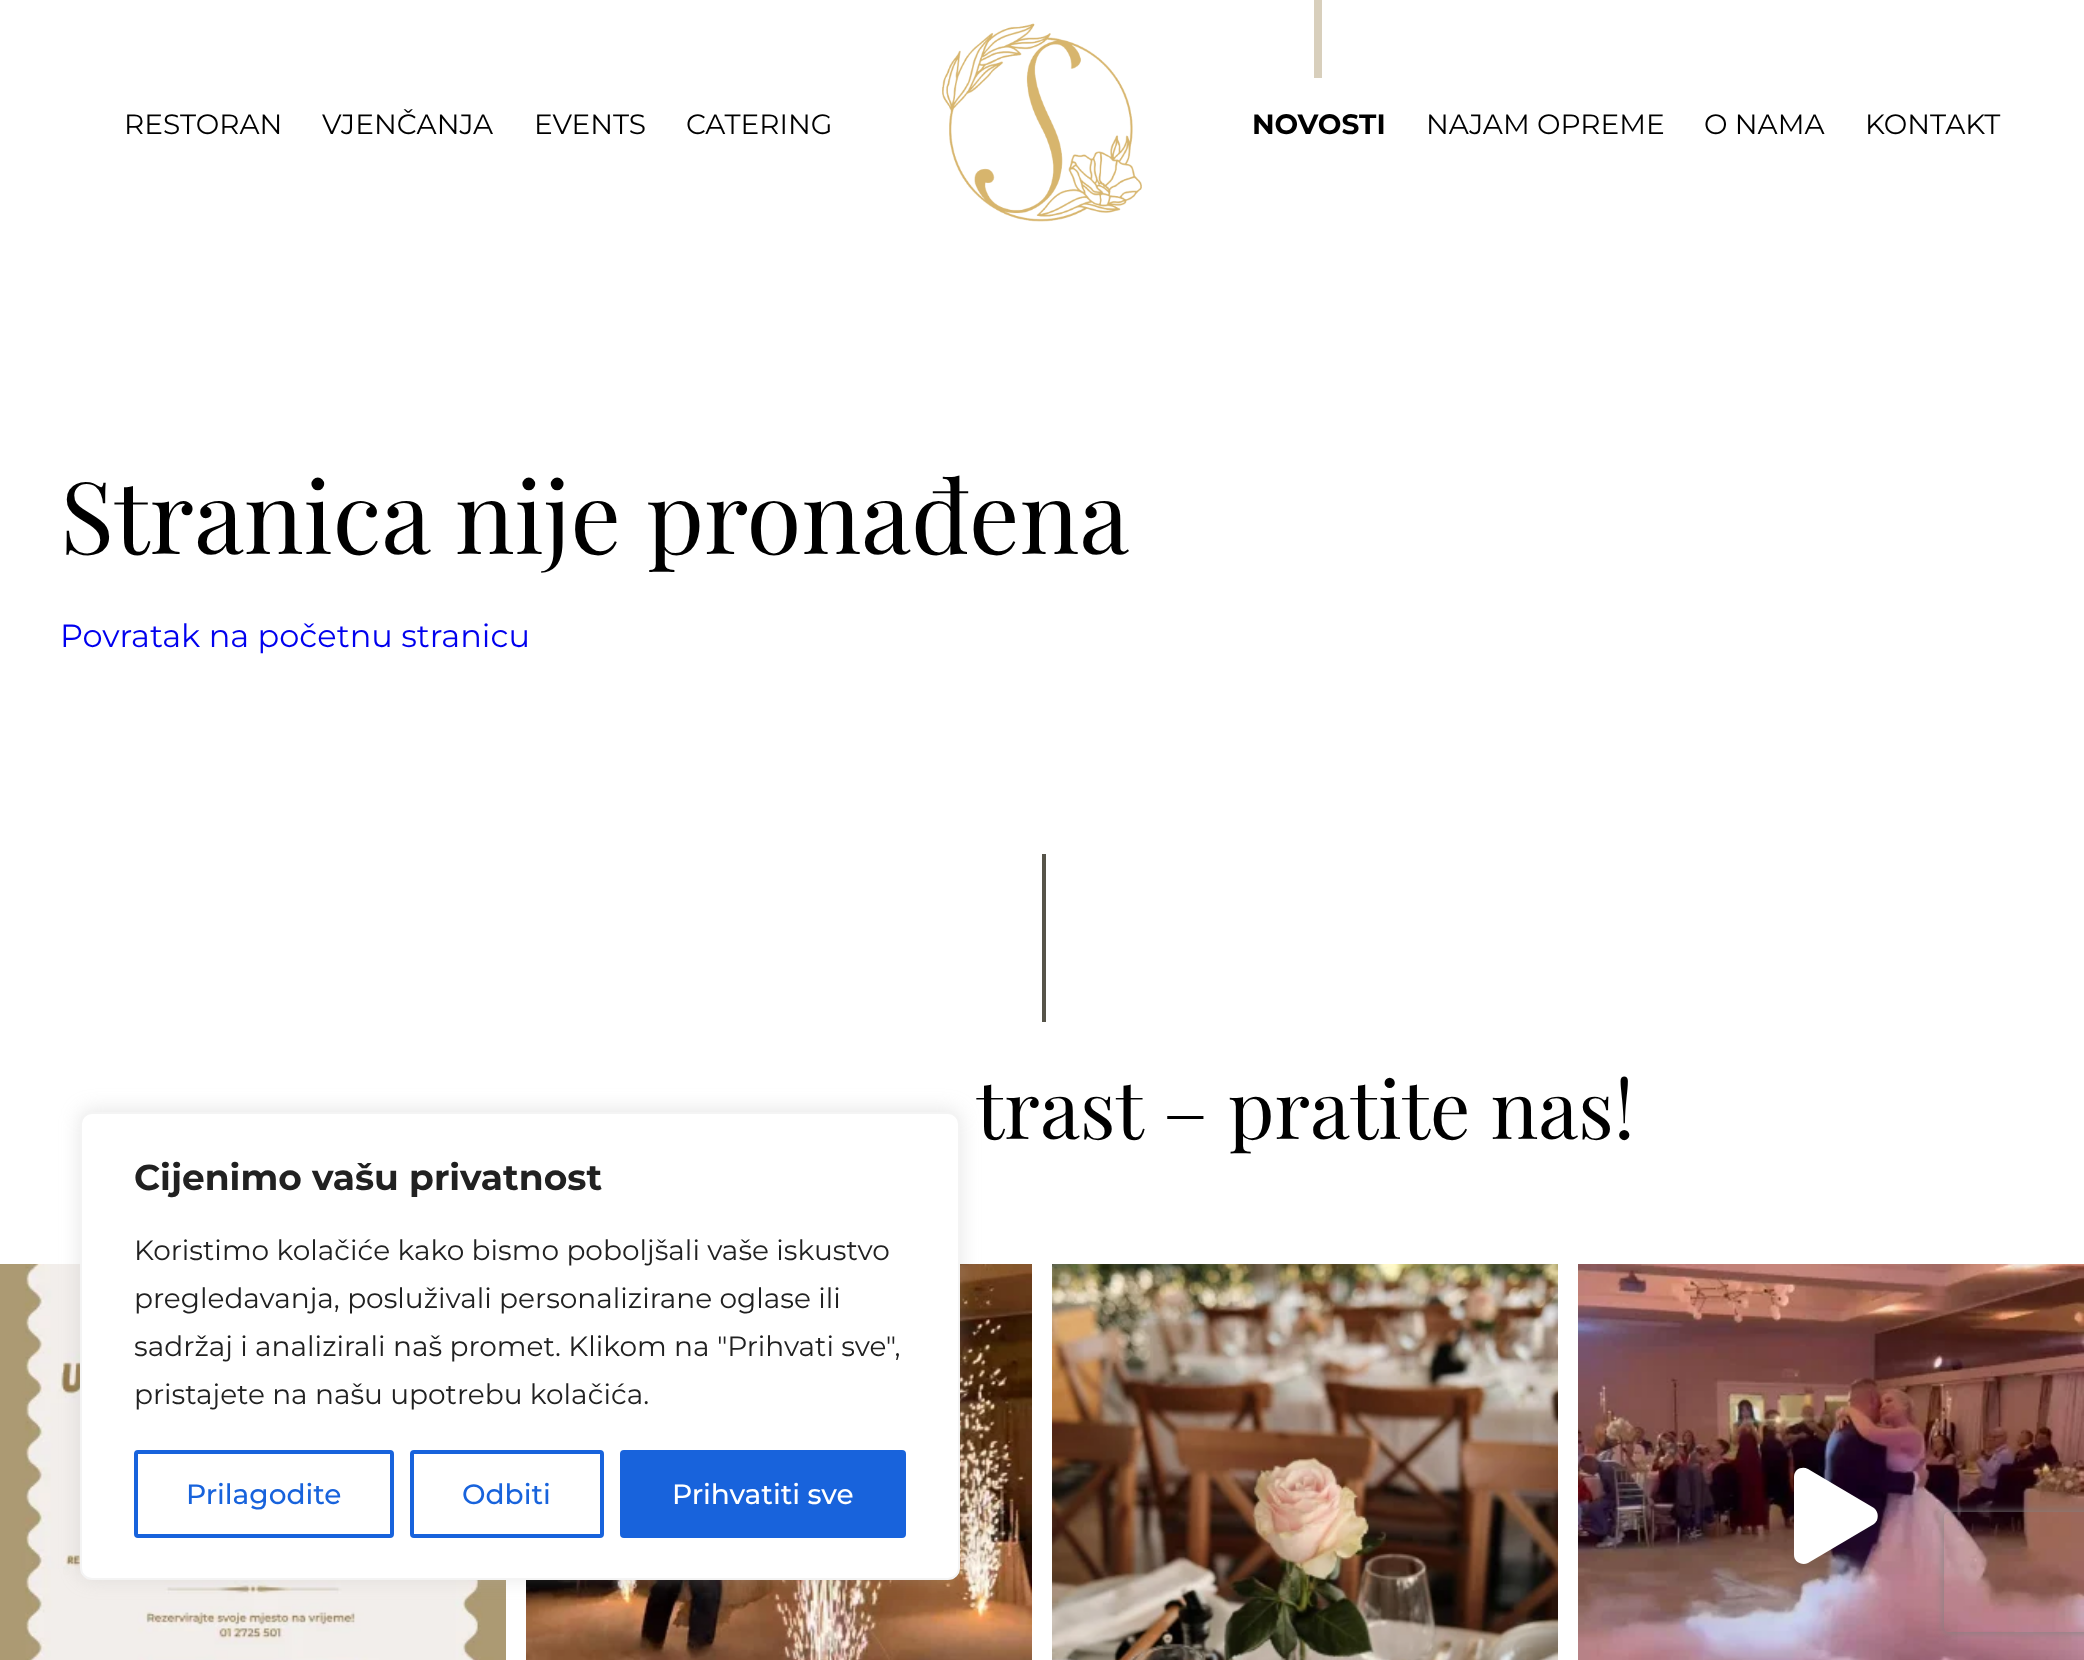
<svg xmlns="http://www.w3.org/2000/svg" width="2084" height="1660">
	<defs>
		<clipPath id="clip1"><path d="M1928 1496H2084V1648H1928ZM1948 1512H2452C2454 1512 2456 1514 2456 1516V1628C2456 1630 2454 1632 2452 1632H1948C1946 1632 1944 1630 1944 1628V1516C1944 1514 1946 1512 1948 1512Z" clip-rule="evenodd" /></clipPath>
	</defs>
	<rect width="100%" height="100%" fill="#FFFFFF" />
	<image x="942" y="23" width="200" height="199" href="assets/img1.png" />
	<g font-family="Montserrat" font-size="28" fill="#000000">
		<text x="124" y="134">RESTORAN</text>
		<text x="322" y="134">VJENČANJA</text>
		<text x="534" y="134">EVENTS</text>
		<text x="686" y="134">CATERING</text>
	</g>
	<rect x="1314" y="0" width="8" height="78" fill="#D8CFBC" />
	<text x="1252" y="134" font-family="Montserrat" font-size="28" font-weight="700" fill="#000000">NOVOSTI</text>
	<g font-family="Montserrat" font-size="28" fill="#000000">
		<text x="1426" y="134">NAJAM OPREME</text>
		<text x="1704" y="134">O NAMA</text>
		<text x="1865" y="134">KONTAKT</text>
	</g>
	<text x="60" y="554" font-family="Playfair Display" font-size="100" fill="#000000">Stranica nije pronađena</text>
	<text x="60" y="647" font-family="Montserrat" font-size="32" fill="#0000EE">Povratak na početnu stranicu</text>
	<rect x="1042" y="854" width="4" height="168" fill="#565449" />
	<text x="976" y="1139" font-family="Playfair Display" font-size="80" fill="#000000">trast – pratite nas!</text>
	<image x="0" y="1264" width="506" height="396" href="assets/img2.png" />
	<image x="526" y="1264" width="506" height="396" href="assets/img3.png" />
	<image x="1052" y="1264" width="506" height="396" href="assets/img4.png" />
	<image x="1578" y="1264" width="506" height="396" href="assets/img5.png" />
	<path d="M1874 1508L1808 1469C1802 1466 1794 1469 1794 1477V1555C1794 1562 1802 1566 1808 1563L1874 1524C1879 1520 1879 1512 1874 1508Z" fill="#FFFFFF" />
	<rect x="80" y="1110" width="880" height="468" rx="12" fill="#ACABAB" fill-opacity="0.3" filter="blur(10px)" />
	<rect x="81" y="1113" width="878" height="466" rx="11" fill="#FFFFFF" stroke="#F4F4F4" stroke-width="2" />
	<text x="134" y="1190" font-family="Montserrat" font-size="36" font-weight="700" fill="#212121">Cijenimo vašu privatnost</text>
	<g font-family="Montserrat" font-size="28" fill="#212121">
		<text x="134" y="1260">Koristimo kolačiće kako bismo poboljšali vaše iskustvo</text>
		<text x="134" y="1308">pregledavanja, posluživali personalizirane oglase ili</text>
		<text x="134" y="1356">sadržaj i analizirali naš promet. Klikom na "Prihvati sve",</text>
		<text x="134" y="1404">pristajete na našu upotrebu kolačića.</text>
	</g>
	<rect x="136" y="1452" width="256" height="84" rx="2" fill="none" stroke="#1863DC" stroke-width="4" />
	<text x="186" y="1504" font-family="Montserrat" font-size="28" font-weight="500" fill="#1863DC">Prilagodite</text>
	<rect x="412" y="1452" width="190" height="84" rx="2" fill="none" stroke="#1863DC" stroke-width="4" />
	<text x="462" y="1504" font-family="Montserrat" font-size="28" font-weight="500" fill="#1863DC">Odbiti</text>
	<rect x="622" y="1452" width="282" height="84" rx="2" fill="#1863DC" stroke="#1863DC" stroke-width="4" />
	<text x="672" y="1504" font-family="Montserrat" font-size="28" font-weight="500" fill="#FFFFFF">Prihvatiti sve</text>
	<g clip-path="url(#clip1)">
		<rect x="1944" y="1512" width="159" height="120" rx="4" fill="#808080" filter="blur(5px)" />
	</g>
</svg>
